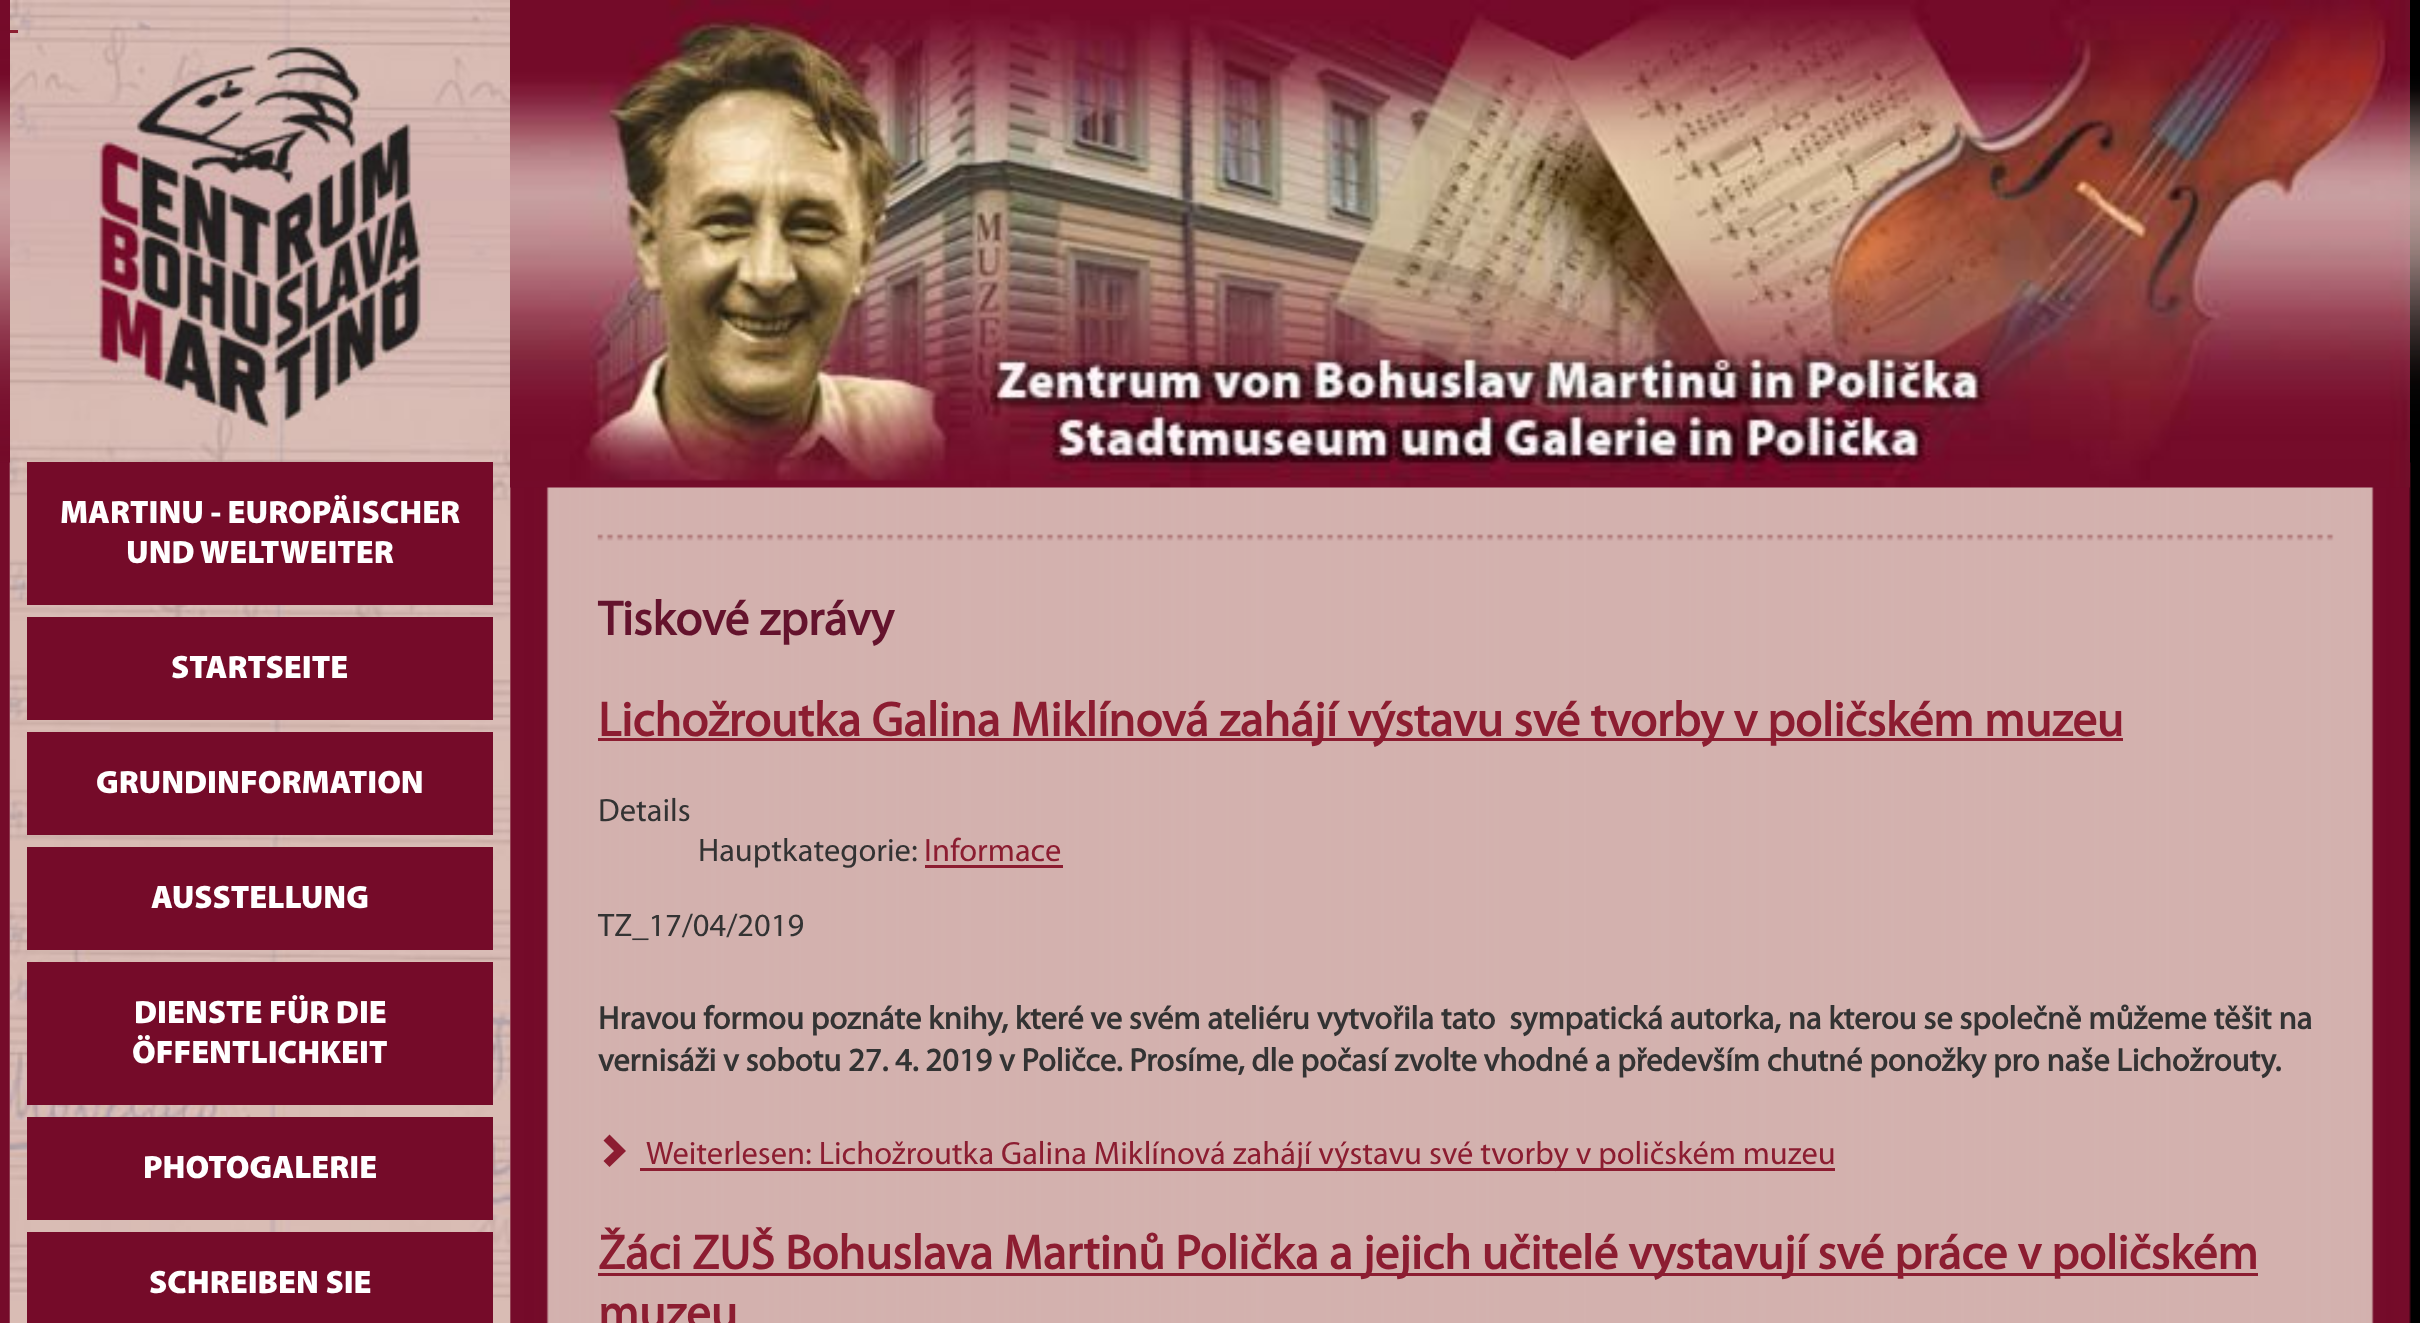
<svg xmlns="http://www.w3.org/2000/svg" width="2420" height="1323">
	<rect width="100%" height="100%" fill="#FFFFFF" />
	<image x="0" y="462" width="2420" height="861" href="assets/img1.png" />
	<image x="0" y="0" width="10" height="463" href="assets/img2.png" />
	<image x="2410" y="0" width="10" height="463" href="assets/img3.png" />
	<image x="10" y="0" width="500" height="1323" href="assets/img4.png" />
	<rect x="10" y="30" width="8" height="3" fill="#8C1D31" />
	<rect x="27" y="462" width="466" height="143" fill="#750B29" />
	<g font-family="Myriad" font-size="32.5" font-weight="900" fill="#FFFFFF">
		<text x="60" y="523">MARTINU - EUROPÄISCHER</text>
		<text x="126" y="563">UND WELTWEITER</text>
	</g>
	<rect x="27" y="617" width="466" height="103" fill="#750B29" />
	<text x="171" y="678" font-family="Myriad" font-size="32.5" font-weight="900" fill="#FFFFFF">STARTSEITE</text>
	<rect x="27" y="732" width="466" height="103" fill="#750B29" />
	<text x="96" y="793" font-family="Myriad" font-size="32.5" font-weight="900" fill="#FFFFFF">GRUNDINFORMATION</text>
	<rect x="27" y="847" width="466" height="103" fill="#750B29" />
	<text x="151" y="908" font-family="Myriad" font-size="32.5" font-weight="900" fill="#FFFFFF">AUSSTELLUNG</text>
	<rect x="27" y="962" width="466" height="143" fill="#750B29" />
	<g font-family="Myriad" font-size="32.5" font-weight="900" fill="#FFFFFF">
		<text x="134" y="1023">DIENSTE FÜR DIE</text>
		<text x="132" y="1063">ÖFFENTLICHKEIT</text>
	</g>
	<rect x="27" y="1117" width="466" height="103" fill="#750B29" />
	<text x="143" y="1178" font-family="Myriad" font-size="32.5" font-weight="900" fill="#FFFFFF">PHOTOGALERIE</text>
	<rect x="27" y="1232" width="466" height="91" fill="#750B29" />
	<text x="149" y="1293" font-family="Myriad" font-size="32.5" font-weight="900" fill="#FFFFFF">SCHREIBEN SIE</text>
	<image x="510" y="0" width="1900" height="488" href="assets/img5.png" />
	<image x="597" y="534" width="1737" height="7" href="assets/img6.png" />
	<text x="598" y="635" font-family="Myriad" font-size="48.75" font-weight="700" fill="#64132D">Tiskové zprávy</text>
	<rect x="598" y="738" width="1525" height="3" fill="#8C1D31" />
	<text x="598" y="736" font-family="Myriad" font-size="48.75" font-weight="700" fill="#8C1D31">Lichožroutka Galina Miklínová zahájí výstavu své tvorby v poličském muzeu</text>
	<g font-family="Myriad" font-size="32.5" fill="#333333">
		<text x="598" y="821">Details</text>
		<text x="698" y="861">Hauptkategorie:</text>
	</g>
	<text x="924" y="861" font-family="Myriad" font-size="32.5" fill="#8C1D31">Informace</text>
	<rect x="925" y="865" width="138" height="3" fill="#8C1D31" />
	<text x="598" y="936" font-family="Myriad" font-size="32.5" fill="#333333">TZ_17/04/2019</text>
	<g font-family="Myriad" font-size="32.5" font-weight="700" fill="#333333">
		<text x="598" y="1029" xml:space="preserve">Hravou formou poznáte knihy, které ve svém ateliéru vytvořila tato  sympatická autorka, na kterou se společně můžeme těšit na</text>
		<text x="598" y="1071">vernisáži v sobotu 27. 4. 2019 v Poličce. Prosíme, dle počasí zvolte vhodné a především chutné ponožky pro naše Lichožrouty.</text>
	</g>
	<path d="M609.5 1134.5L626 1151L609.5 1167L603.5 1161L614 1151L603.5 1140.5Z" fill="#8C1D31" />
	<rect x="640" y="1168" width="1195" height="3" fill="#8C1D31" />
	<text x="646" y="1164" font-family="Myriad" font-size="32.5" fill="#8C1D31">Weiterlesen: Lichožroutka Galina Miklínová zahájí výstavu své tvorby v poličském muzeu</text>
	<rect x="598" y="1273" width="1660" height="3" fill="#8C1D31" />
	<g font-family="Myriad" font-size="48.75" font-weight="700" fill="#8C1D31">
		<text x="598" y="1269">Žáci ZUŠ Bohuslava Martinů Polička a jejich učitelé vystavují své práce v poličském</text>
		<text x="598" y="1329">muzeu</text>
	</g>
</svg>
